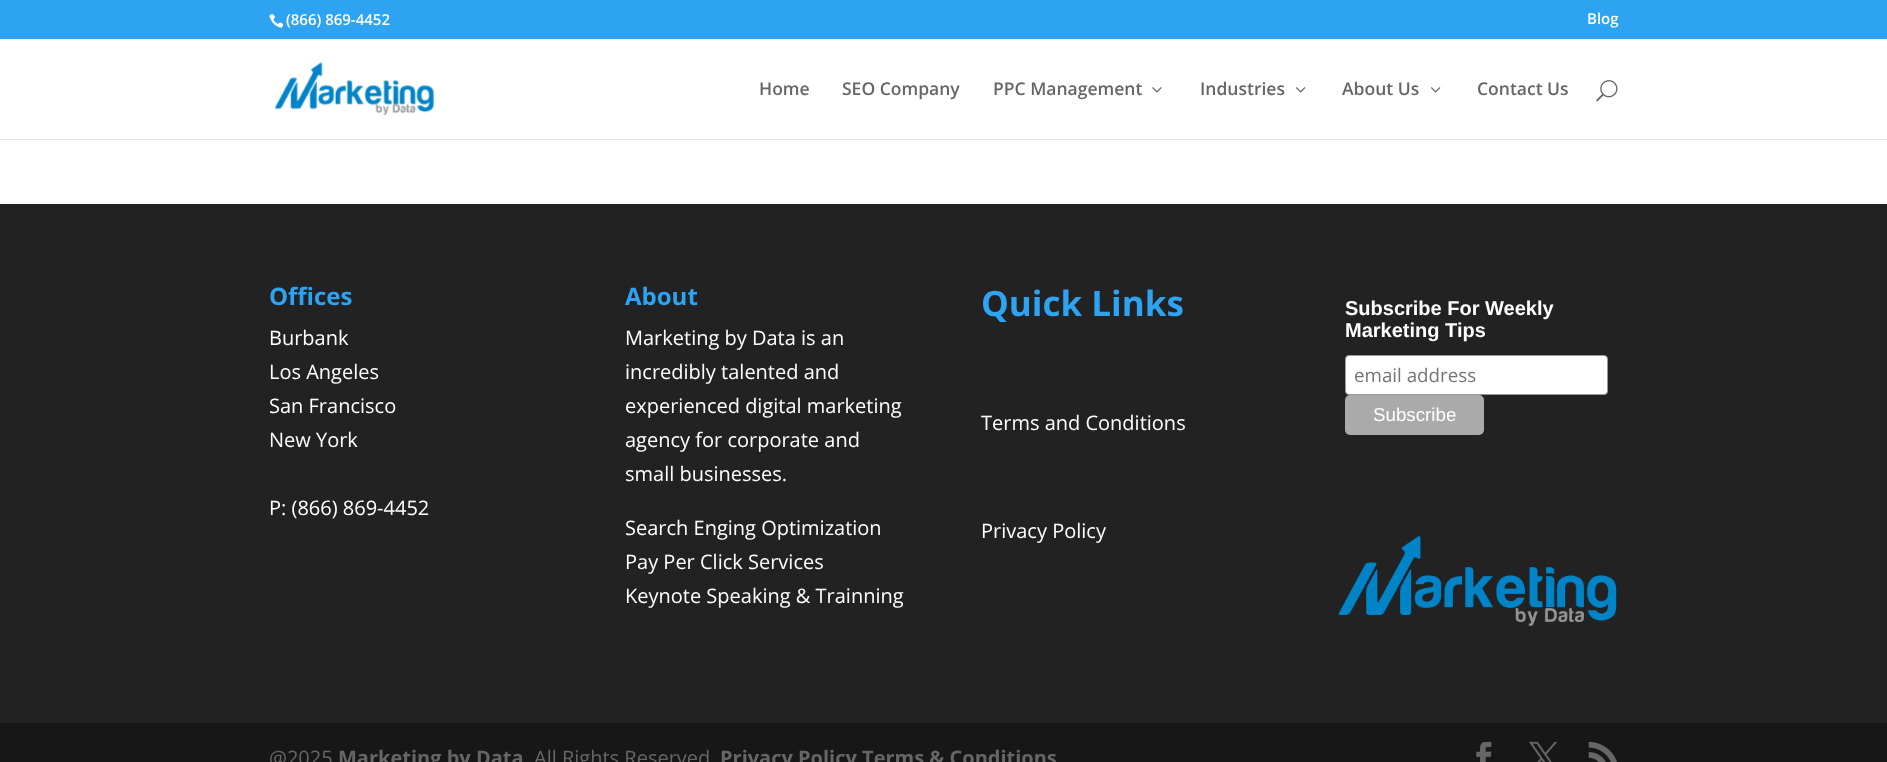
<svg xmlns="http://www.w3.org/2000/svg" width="1887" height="762">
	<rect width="100%" height="100%" fill="#FFFFFF" />
	<rect x="0" y="0" width="1887" height="39" fill="#2EA3F2" />
	<image x="269" y="14" width="15" height="14" href="assets/img1.png" />
	<g font-family="Open Sans" font-size="15" font-weight="600" fill="#FFFFFF">
		<text x="286" y="25">(866) 869-4452</text>
		<text x="1587" y="24">Blog</text>
	</g>
	<path d="M0 139V140H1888V40V139Z" fill="#E6E6E6" />
	<image x="274" y="62" width="161" height="54" href="assets/img2.png" />
	<g font-family="Open Sans" font-size="17.5" font-weight="600" fill="#666666">
		<text x="759" y="95">Home</text>
		<text x="842" y="95">SEO Company</text>
		<text x="993" y="95">PPC Management</text>
	</g>
	<image x="1152" y="87" width="10" height="6" href="assets/img3.png" />
	<text x="1200" y="95" font-family="Open Sans" font-size="17.5" font-weight="600" fill="#666666">Industries</text>
	<image x="1296" y="87" width="10" height="6" href="assets/img4.png" />
	<text x="1342" y="95" font-family="Open Sans" font-size="17.5" font-weight="600" fill="#666666">About Us</text>
	<image x="1431" y="87" width="10" height="6" href="assets/img4.png" />
	<text x="1477" y="95" font-family="Open Sans" font-size="17.5" font-weight="600" fill="#666666">Contact Us</text>
	<image x="1596" y="80" width="22" height="22" href="assets/img5.png" />
	<rect x="0" y="204" width="1887" height="519" fill="#222222" />
	<text x="269" y="305" font-family="Open Sans" font-size="24" font-weight="700" fill="#2EA3F2">Offices</text>
	<g font-family="Open Sans" font-size="20" fill="#FFFFFF">
		<text x="269" y="345">Burbank</text>
		<text x="269" y="379">Los Angeles</text>
		<text x="269" y="413">San Francisco</text>
		<text x="269" y="447">New York</text>
		<text x="269" y="515">P: (866) 869-4452</text>
	</g>
	<text x="625" y="305" font-family="Open Sans" font-size="24" font-weight="700" fill="#2EA3F2">About</text>
	<g font-family="Open Sans" font-size="20" fill="#FFFFFF">
		<text x="625" y="345">Marketing by Data is an</text>
		<text x="625" y="379">incredibly talented and</text>
		<text x="625" y="413">experienced digital marketing</text>
		<text x="625" y="447">agency for corporate and</text>
		<text x="625" y="481">small businesses.</text>
		<text x="625" y="535">Search Enging Optimization</text>
		<text x="625" y="569">Pay Per Click Services</text>
		<text x="625" y="603">Keynote Speaking &amp; Trainning</text>
	</g>
	<text x="981" y="316" font-family="Open Sans" font-size="35" font-weight="700" fill="#2EA3F2">Quick Links</text>
	<g font-family="Open Sans" font-size="20" fill="#FFFFFF">
		<text x="981" y="430">Terms and Conditions</text>
		<text x="981" y="538">Privacy Policy</text>
	</g>
	<g font-family="Liberation Sans" font-size="20" font-weight="700" fill="#FFFFFF">
		<text x="1345" y="315">Subscribe For Weekly</text>
		<text x="1345" y="337">Marketing Tips</text>
	</g>
	<rect x="1345.5" y="355.5" width="262" height="39" rx="3.5" fill="#FFFFFF" stroke="#999999" />
	<text x="1354" y="382" font-family="Open Sans" font-size="18.75" fill="#757575">email address</text>
	<rect x="1345" y="395" width="139" height="40" rx="5" fill="#AAAAAA" />
	<text x="1373" y="421" font-family="Liberation Sans" font-size="18.75" fill="#FFFFFF">Subscribe</text>
	<image x="1338" y="535" width="279" height="92" href="assets/img6.png" />
	<rect x="0" y="723" width="1887" height="39" fill="#171717" />
	<text x="269" y="765" font-family="Open Sans" font-size="20" fill="#666666">@2025</text>
	<text x="338" y="765" font-family="Open Sans" font-size="20" font-weight="700" fill="#666666">Marketing by Data</text>
	<text x="534" y="765" font-family="Open Sans" font-size="20" fill="#666666">All Rights Reserved</text>
	<text x="720" y="765" font-family="Open Sans" font-size="20" font-weight="700" fill="#666666">Privacy Policy Terms &amp; Conditions</text>
	<image x="1476" y="741" width="16" height="21" href="assets/img7.png" />
	<image x="1529" y="741" width="28" height="21" href="assets/img8.png" />
	<image x="1588" y="741" width="29" height="21" href="assets/img9.png" />
</svg>
